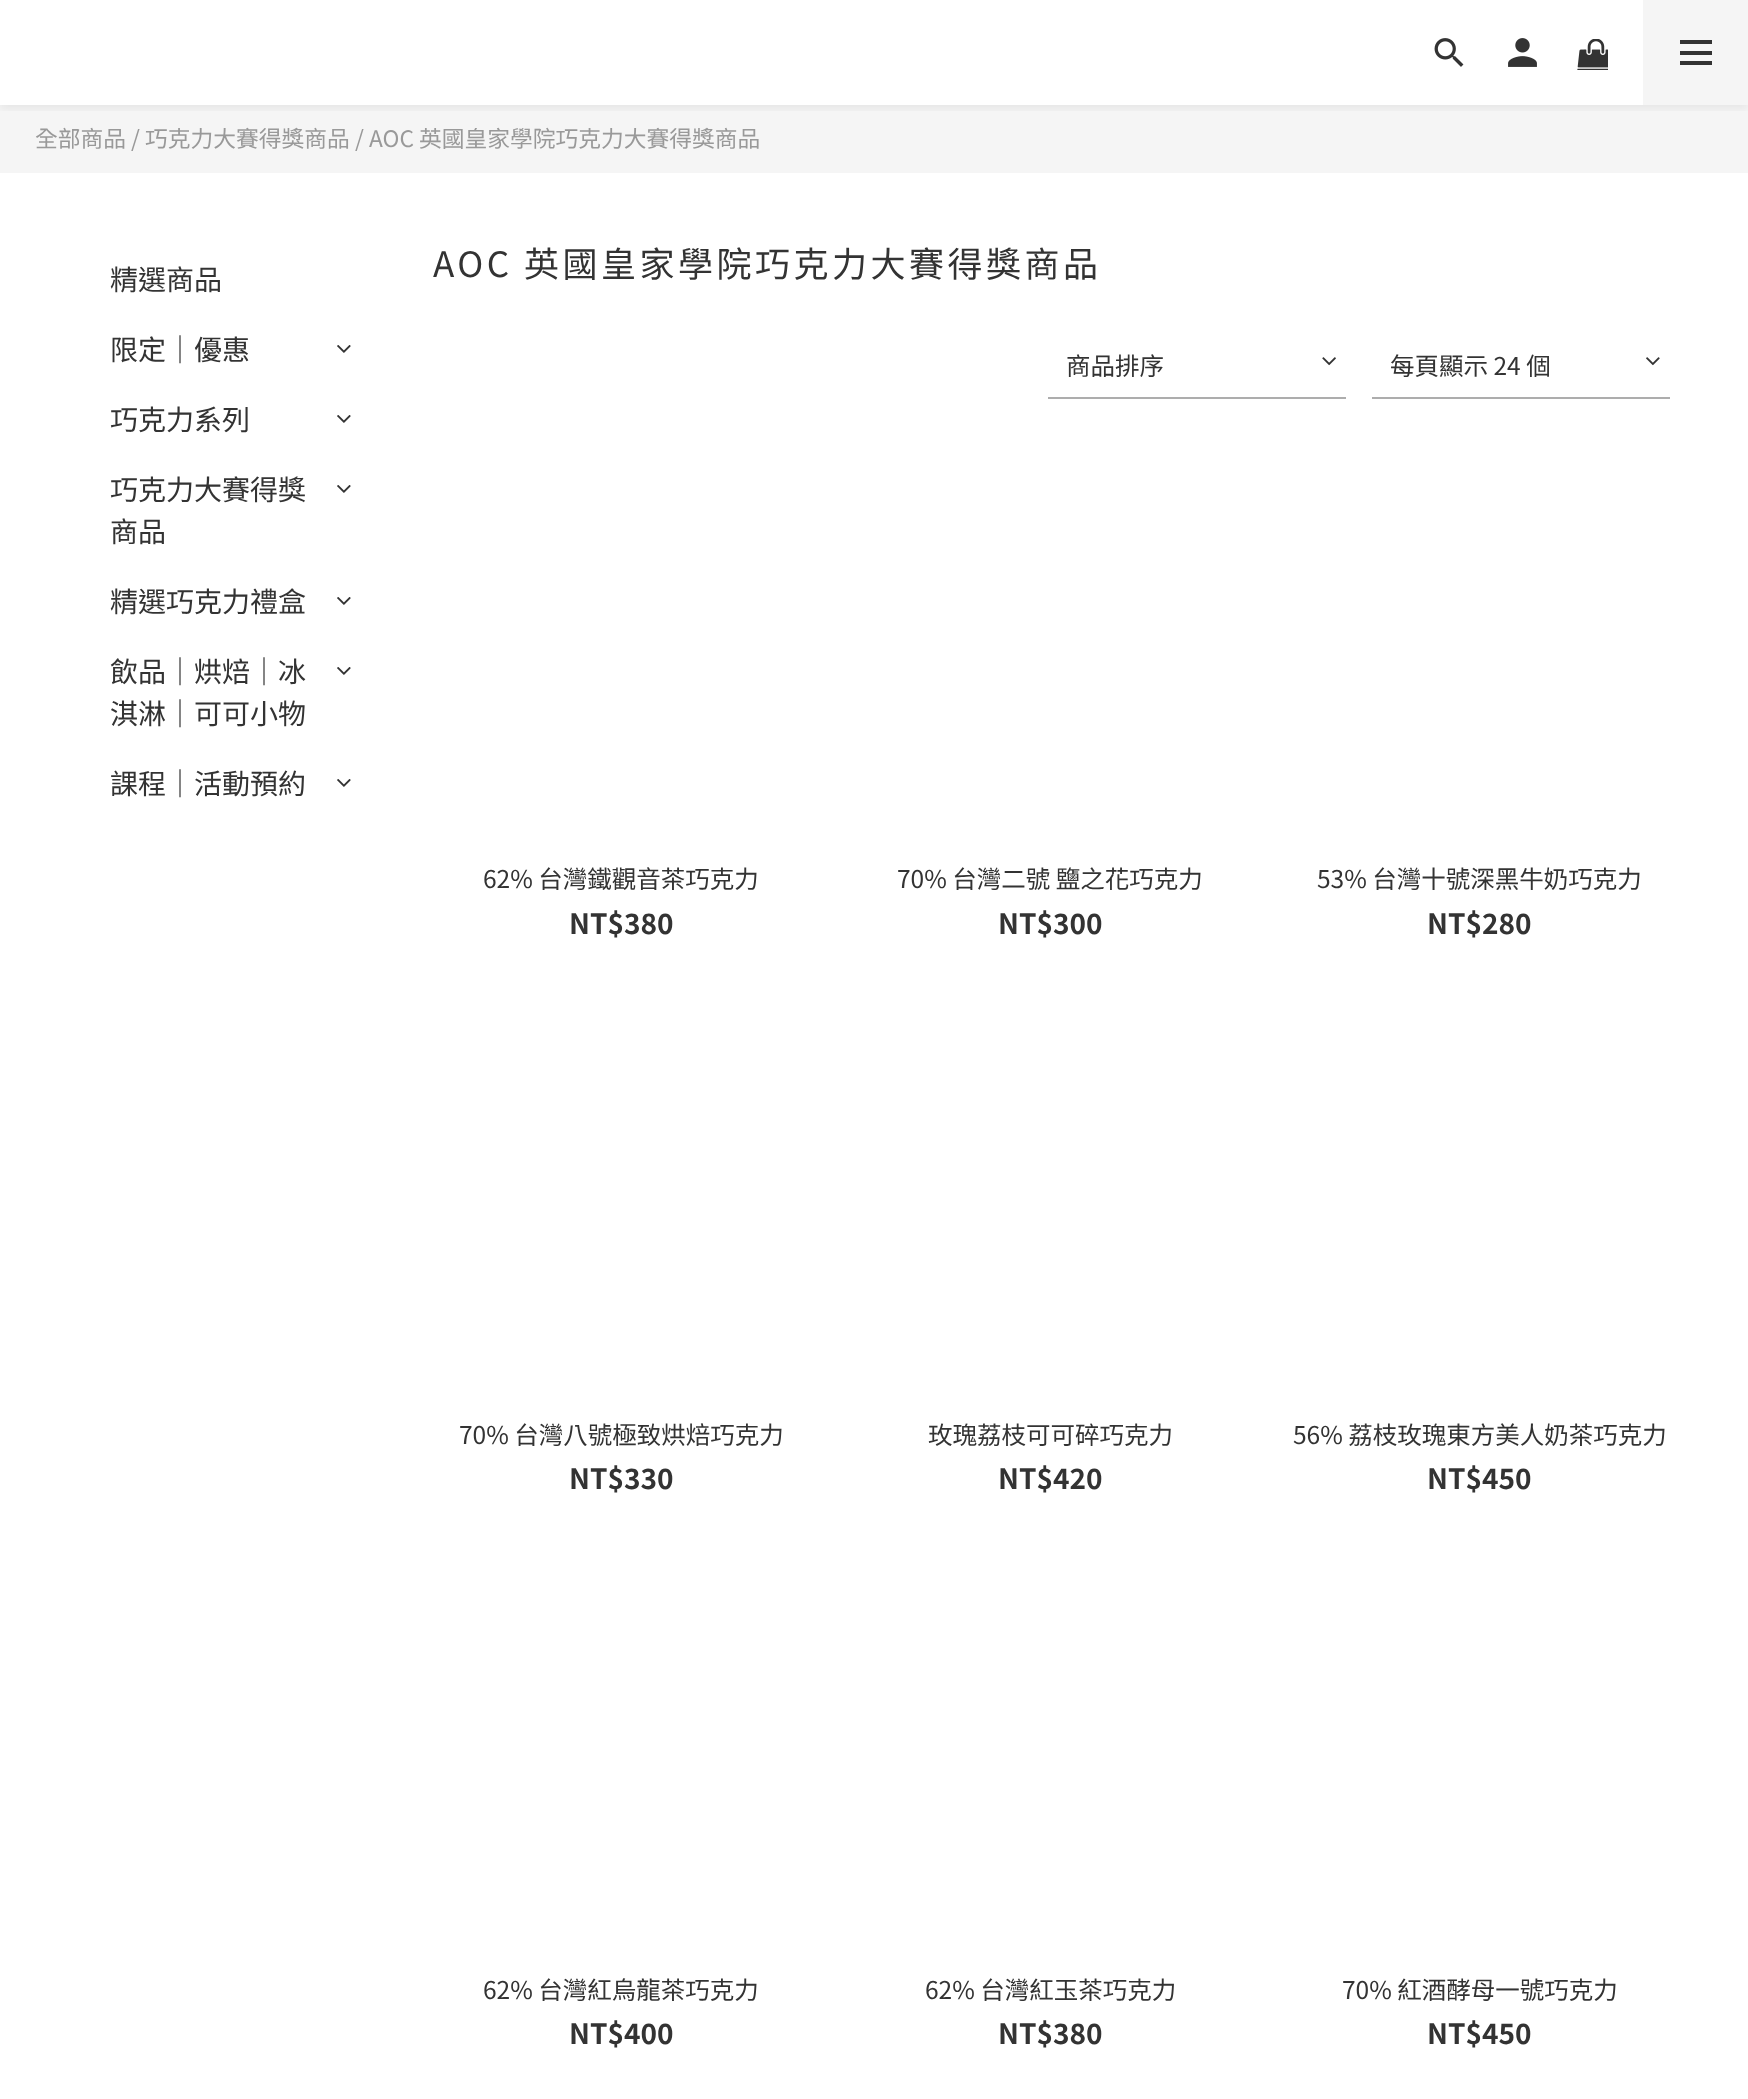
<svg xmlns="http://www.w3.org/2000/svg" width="1748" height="2099">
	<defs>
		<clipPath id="clip1"><rect x="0" y="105" width="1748" height="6" /></clipPath>
	</defs>
	<rect width="100%" height="100%" fill="#FFFFFF" />
	<rect x="0" y="105" width="1748" height="68" fill="#F5F5F5" />
	<g clip-path="url(#clip1)">
		<rect x="0" y="4" width="1748" height="105" fill="#000000" fill-opacity="0.06" filter="blur(5px)" />
	</g>
	<image x="1434" y="38" width="30" height="29" href="assets/img1.png" />
	<image x="1508" y="38" width="29" height="29" href="assets/img2.png" />
	<image x="1577" y="39" width="31" height="31" href="assets/img3.png" />
	<rect x="1643" y="0" width="105" height="105" fill="#F5F5F5" />
	<rect x="1680" y="51" width="32" height="4" fill="#333333" />
	<rect x="1680" y="40" width="32" height="4" fill="#333333" />
	<rect x="1680" y="61" width="32" height="4" fill="#333333" />
	<g font-family="Noto Sans TC" font-size="22.75" fill="#999999">
		<text x="35" y="147">全部商品</text>
		<text x="131" y="147">/ 巧克力大賽得獎商品</text>
		<text x="355" y="147">/ AOC 英國皇家學院巧克力大賽得獎商品</text>
	</g>
	<g font-family="Noto Sans TC" font-size="28" fill="#333333">
		<text x="110" y="290">精選商品</text>
		<text x="110" y="360">限定｜優惠</text>
	</g>
	<image x="337" y="345" width="14" height="8" href="assets/img4.png" />
	<text x="110" y="430" font-family="Noto Sans TC" font-size="28" fill="#333333">巧克力系列</text>
	<image x="337" y="415" width="14" height="8" href="assets/img4.png" />
	<g font-family="Noto Sans TC" font-size="28" fill="#333333">
		<text x="110" y="500">巧克力大賽得獎</text>
		<text x="110" y="542">商品</text>
	</g>
	<image x="337" y="485" width="14" height="8" href="assets/img4.png" />
	<text x="110" y="612" font-family="Noto Sans TC" font-size="28" fill="#333333">精選巧克力禮盒</text>
	<image x="337" y="597" width="14" height="8" href="assets/img4.png" />
	<g font-family="Noto Sans TC" font-size="28" fill="#333333">
		<text x="110" y="682">飲品｜烘焙｜冰</text>
		<text x="110" y="724">淇淋｜可可小物</text>
	</g>
	<image x="337" y="667" width="14" height="8" href="assets/img4.png" />
	<text x="110" y="794" font-family="Noto Sans TC" font-size="28" fill="#333333">課程｜活動預約</text>
	<image x="337" y="779" width="14" height="8" href="assets/img4.png" />
	<text x="433" y="277" font-family="Noto Sans TC" font-size="35" letter-spacing="3.5" fill="#333333">AOC 英國皇家學院巧克力大賽得獎商品</text>
	<text x="1066" y="375" font-family="Noto Sans TC" font-size="24.5" fill="#333333">商品排序</text>
	<rect x="1048" y="397" width="298" height="2" fill="#ADADAD" />
	<image x="1322" y="357" width="14" height="9" href="assets/img5.png" />
	<text x="1390" y="375" font-family="Noto Sans TC" font-size="24.5" fill="#333333">每頁顯示 24 個</text>
	<rect x="1372" y="397" width="298" height="2" fill="#ADADAD" />
	<image x="1646" y="357" width="14" height="9" href="assets/img6.png" />
	<text x="483" y="888" font-family="Noto Sans TC" font-size="24.5" fill="#333333">62% 台灣鐵觀音茶巧克力</text>
	<text x="569" y="934" font-family="Noto Sans TC" font-size="28" font-weight="700" fill="#333333">NT$380</text>
	<text x="897" y="888" font-family="Noto Sans TC" font-size="24.5" fill="#333333">70% 台灣二號 鹽之花巧克力</text>
	<text x="998" y="934" font-family="Noto Sans TC" font-size="28" font-weight="700" fill="#333333">NT$300</text>
	<text x="1317" y="888" font-family="Noto Sans TC" font-size="24.5" fill="#333333">53% 台灣十號深黑牛奶巧克力</text>
	<text x="1427" y="934" font-family="Noto Sans TC" font-size="28" font-weight="700" fill="#333333">NT$280</text>
	<text x="459" y="1444" font-family="Noto Sans TC" font-size="24.5" fill="#333333">70% 台灣八號極致烘焙巧克力</text>
	<text x="569" y="1489" font-family="Noto Sans TC" font-size="28" font-weight="700" fill="#333333">NT$330</text>
	<text x="928" y="1444" font-family="Noto Sans TC" font-size="24.5" fill="#333333">玫瑰荔枝可可碎巧克力</text>
	<text x="998" y="1489" font-family="Noto Sans TC" font-size="28" font-weight="700" fill="#333333">NT$420</text>
	<text x="1293" y="1444" font-family="Noto Sans TC" font-size="24.5" fill="#333333">56% 荔枝玫瑰東方美人奶茶巧克力</text>
	<text x="1427" y="1489" font-family="Noto Sans TC" font-size="28" font-weight="700" fill="#333333">NT$450</text>
	<text x="483" y="1999" font-family="Noto Sans TC" font-size="24.5" fill="#333333">62% 台灣紅烏龍茶巧克力</text>
	<text x="569" y="2044" font-family="Noto Sans TC" font-size="28" font-weight="700" fill="#333333">NT$400</text>
	<text x="925" y="1999" font-family="Noto Sans TC" font-size="24.5" fill="#333333">62% 台灣紅玉茶巧克力</text>
	<text x="998" y="2044" font-family="Noto Sans TC" font-size="28" font-weight="700" fill="#333333">NT$380</text>
	<text x="1342" y="1999" font-family="Noto Sans TC" font-size="24.5" fill="#333333">70% 紅酒酵母一號巧克力</text>
	<text x="1427" y="2044" font-family="Noto Sans TC" font-size="28" font-weight="700" fill="#333333">NT$450</text>
</svg>
